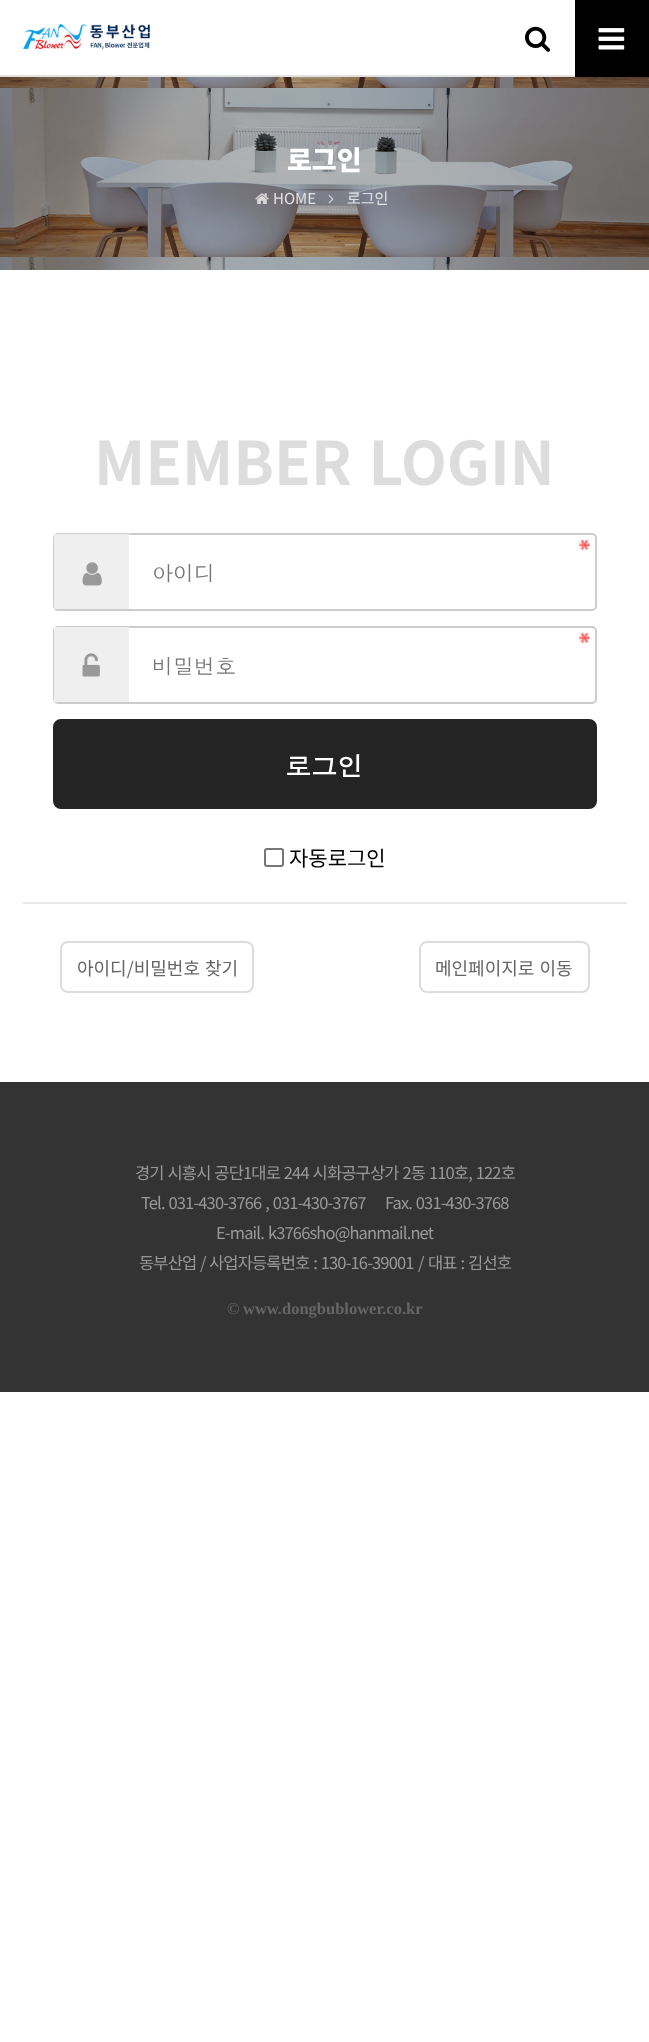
<svg xmlns="http://www.w3.org/2000/svg" width="649" height="2042">
	<rect width="100%" height="100%" fill="#FFFFFF" />
	<rect x="0" y="75" width="575" height="2" fill="#E2E2E2" />
	<image x="22" y="24" width="128" height="26" href="assets/img1.png" />
	<image x="525" y="26" width="25" height="26" href="assets/img2.png" />
	<rect x="575" y="0" width="74" height="77" fill="#000000" />
	<image x="598" y="28" width="27" height="22" href="assets/img3.png" />
	<image x="0" y="77" width="649" height="193" href="assets/img4.png" />
	<text x="287" y="170" font-family="Noto Sans KR" font-size="27" font-weight="900" fill="#FFFFFF">로그인</text>
	<image x="255" y="193" width="14" height="11" href="assets/img5.png" />
	<text x="273" y="204" font-family="Noto Sans KR" font-size="15" fill="#E3E3E4">HOME</text>
	<image x="328" y="195" width="6" height="9" href="assets/img6.png" />
	<text x="347" y="204" font-family="Noto Sans KR" font-size="15" fill="#E3E3E4">로그인</text>
	<text x="94" y="485" word-spacing="3" font-family="Noto Sans KR" font-size="60" font-weight="700" fill="#DDDDDD">MEMBER LOGIN</text>
	<image x="578" y="539" width="12" height="12" href="assets/img8.png" />
	<rect x="54" y="534" width="542" height="76" rx="4" fill="none" stroke="#CCCCCC" stroke-width="2" />
	<rect x="54" y="534" width="75" height="75" fill="#EFEFEF" />
	<image x="82" y="562" width="20" height="24" href="assets/img7.png" />
	<text x="152" y="581" font-family="Dotum" font-size="21" fill="#757575">아이디</text>
	<image x="578" y="632" width="12" height="12" href="assets/img8.png" />
	<rect x="54" y="627" width="542" height="76" rx="4" fill="none" stroke="#CCCCCC" stroke-width="2" />
	<rect x="54" y="627" width="75" height="75" fill="#EFEFEF" />
	<image x="82" y="653" width="18" height="24" href="assets/img9.png" />
	<text x="152" y="674" font-family="Dotum" font-size="21" fill="#757575">비밀번호</text>
	<rect x="54" y="720" width="542" height="88" rx="7" fill="#242424" stroke="#242424" stroke-width="2" />
	<text x="285" y="776" font-family="Dotum" font-size="26" font-weight="700" fill="#FFFFFF">로그인</text>
	<rect x="265" y="849" width="18" height="17" rx="2" fill="none" stroke="#767676" stroke-width="2" />
	<text x="289" y="866" font-family="Noto Sans KR" font-size="21" fill="#000000">자동로그인</text>
	<rect x="23" y="902" width="604" height="2" fill="#E8E8E8" />
	<rect x="61" y="942" width="192" height="50" rx="7" fill="none" stroke="#DDDDDD" stroke-width="2" />
	<text x="77" y="975" word-spacing="1" font-family="Noto Sans KR" font-size="18" fill="#666666">아이디/비밀번호 찾기</text>
	<rect x="420" y="942" width="169" height="50" rx="7" fill="none" stroke="#DDDDDD" stroke-width="2" />
	<text x="435" y="975" word-spacing="1" font-family="Noto Sans KR" font-size="18" fill="#666666">메인페이지로 이동</text>
	<rect x="0" y="1082" width="649" height="310" fill="#333333" />
	<g font-family="Noto Sans KR" font-size="16.5" letter-spacing="-0.85" fill="#999999">
		<text x="135" y="1179" word-spacing="1">경기 시흥시 공단1대로 244 시화공구상가 2동 110호, 122호</text>
		<text x="141" y="1209" word-spacing="1">Tel. 031-430-3766 , 031-430-3767</text>
		<text x="385" y="1209" word-spacing="1">Fax. 031-430-3768</text>
		<text x="216" y="1239">E-mail.</text>
		<text x="268" y="1239">k3766sho@hanmail.net</text>
		<text x="139" y="1269">동부산업</text>
		<text x="200" y="1269">/</text>
		<text x="209" y="1269" word-spacing="1">사업자등록번호 : 130-16-39001</text>
		<text x="418" y="1269">/</text>
		<text x="428" y="1269" word-spacing="1">대표 : 김선호</text>
	</g>
	<text x="227" y="1314" font-family="Liberation Serif" font-size="16.5" fill="#666666">©</text>
	<text x="243" y="1314" font-family="Liberation Serif" font-size="16.5" font-weight="700" fill="#666666">www.dongbublower.co.kr</text>
</svg>
